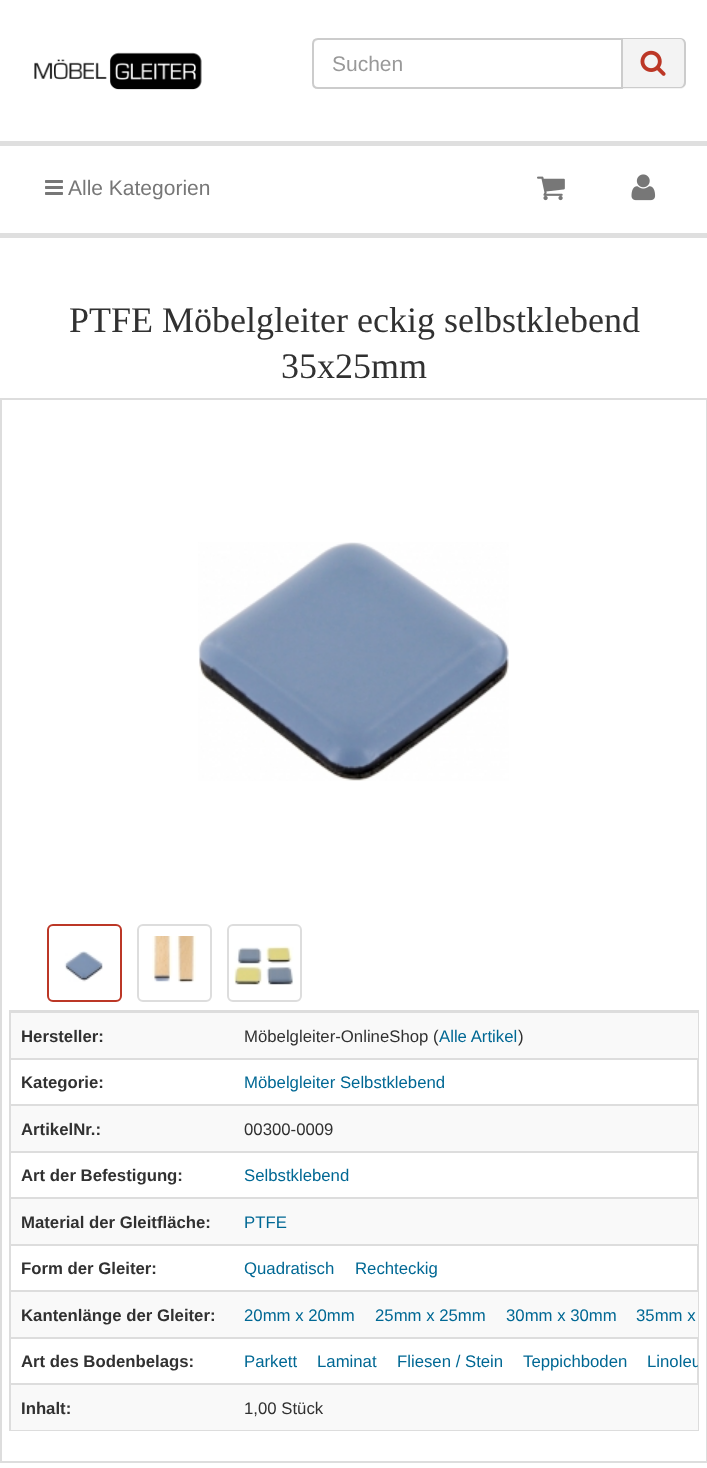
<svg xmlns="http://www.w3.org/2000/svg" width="707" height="1468">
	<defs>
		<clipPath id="clip1"><rect x="11" y="1011" width="687" height="419" /></clipPath>
	</defs>
	<rect width="100%" height="100%" fill="#FFFFFF" />
	<image x="34" y="52" width="168" height="38" href="assets/img1.png" />
	<path d="M623 38H680C683.5 38 686 40.5 686 44V83C686 86.5 683.5 89 680 89H623Z" fill="#F3F3F3" />
	<path d="M622 38H680C683 38 686 40 686 44V82C686 86 683 88 680 88H622ZM622 39H680C682 39 684 41 684 44V82C684 85 682 87 680 87H622Z" fill="#CCCCCC" fill-rule="evenodd" />
	<path d="M318 38H623V89H318C314.5 89 312 86.5 312 83V44C312 40.5 314.5 38 318 38Z" fill="#FFFFFF" />
	<path d="M318 40H621V39H319C316 39 314 42 314 45C314 43 316 40 318 40Z" fill="#ECECEC" />
	<path d="M318 39H622V88H318C315 88 313 86 313 83V44C313 41 315 39 318 39Z" fill="none" stroke="#CCCCCC" stroke-width="2" />
	<text x="332" y="71" font-family="Liberation Sans" font-size="21" fill="#999999">Suchen</text>
	<image x="640" y="50" width="26" height="26" href="assets/img2.png" />
	<rect x="0" y="141" width="707" height="5" fill="#DFDFDF" />
	<rect x="0" y="233" width="707" height="5" fill="#DFDFDF" />
	<image x="45" y="180" width="18" height="15" href="assets/img3.png" />
	<text x="68" y="195" font-family="Liberation Sans" font-size="21" fill="#777777">Alle Kategorien</text>
	<image x="537" y="176" width="28" height="25" href="assets/img4.png" />
	<image x="631" y="174" width="25" height="27" href="assets/img5.png" />
	<g font-family="Liberation Serif" font-size="36" fill="#313131">
		<text x="69" y="332">PTFE Möbelgleiter eckig selbstklebend</text>
		<text x="281" y="378">35x25mm</text>
	</g>
	<rect x="1" y="399" width="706" height="1063" fill="none" stroke="#DDDDDD" stroke-width="2" />
	<image x="198" y="542" width="311" height="239" href="assets/img6.png" />
	<rect x="48" y="925" width="73" height="76" rx="5" fill="none" stroke="#BC3726" stroke-width="2" />
	<image x="64" y="951" width="39" height="31" href="assets/img7.png" />
	<rect x="138" y="925" width="73" height="76" rx="5" fill="none" stroke="#DDDDDD" stroke-width="2" />
	<image x="152" y="936" width="44" height="47" href="assets/img8.png" />
	<rect x="228" y="925" width="73" height="76" rx="5" fill="none" stroke="#DDDDDD" stroke-width="2" />
	<image x="234" y="946" width="60" height="39" href="assets/img9.png" />
	<rect x="10" y="1011" width="688" height="419" fill="none" stroke="#DDDDDD" stroke-width="2" />
	<rect x="11" y="1013" width="687" height="45" fill="#F9F9F9" />
	<text x="21" y="1042" font-family="Liberation Sans" font-size="16.75" font-weight="700" fill="#313131">Hersteller:</text>
	<rect x="11" y="1012" width="687" height="1" fill="#DDDDDD" />
	<text x="244" y="1042" font-family="Liberation Sans" font-size="16.75" fill="#313131">Möbelgleiter-OnlineShop (</text>
	<text x="439" y="1042" font-family="Liberation Sans" font-size="16.75" fill="#006894">Alle Artikel</text>
	<text x="518" y="1042" font-family="Liberation Sans" font-size="16.75" fill="#313131">)</text>
	<text x="21" y="1088" font-family="Liberation Sans" font-size="16.75" font-weight="700" fill="#313131">Kategorie:</text>
	<rect x="11" y="1058" width="687" height="2" fill="#DDDDDD" />
	<text x="244" y="1088" font-family="Liberation Sans" font-size="16.75" fill="#006894">Möbelgleiter Selbstklebend</text>
	<rect x="11" y="1106" width="687" height="45" fill="#F9F9F9" />
	<text x="21" y="1135" font-family="Liberation Sans" font-size="16.75" font-weight="700" fill="#313131">ArtikelNr.:</text>
	<rect x="11" y="1104" width="687" height="2" fill="#DDDDDD" />
	<text x="244" y="1135" font-family="Liberation Sans" font-size="16.75" fill="#313131">00300-0009</text>
	<text x="21" y="1181" font-family="Liberation Sans" font-size="16.75" font-weight="700" fill="#313131">Art der Befestigung:</text>
	<rect x="11" y="1151" width="687" height="2" fill="#DDDDDD" />
	<text x="244" y="1181" font-family="Liberation Sans" font-size="16.75" fill="#006894">Selbstklebend</text>
	<rect x="11" y="1199" width="687" height="45" fill="#F9F9F9" />
	<text x="21" y="1228" font-family="Liberation Sans" font-size="16.75" font-weight="700" fill="#313131">Material der Gleitfläche:</text>
	<rect x="11" y="1197" width="687" height="2" fill="#DDDDDD" />
	<text x="244" y="1228" font-family="Liberation Sans" font-size="16.75" fill="#006894">PTFE</text>
	<text x="21" y="1274" font-family="Liberation Sans" font-size="16.75" font-weight="700" fill="#313131">Form der Gleiter:</text>
	<rect x="11" y="1244" width="687" height="2" fill="#DDDDDD" />
	<g font-family="Liberation Sans" font-size="16.75" fill="#006894">
		<text x="244" y="1274">Quadratisch</text>
		<text x="355" y="1274">Rechteckig</text>
	</g>
	<rect x="11" y="1292" width="687" height="45" fill="#F9F9F9" />
	<text x="21" y="1321" font-family="Liberation Sans" font-size="16.75" font-weight="700" fill="#313131">Kantenlänge der Gleiter:</text>
	<rect x="11" y="1290" width="687" height="2" fill="#DDDDDD" />
	<g font-family="Liberation Sans" font-size="16.75" fill="#006894">
		<text x="244" y="1321">20mm x 20mm</text>
		<text x="375" y="1321">25mm x 25mm</text>
		<text x="506" y="1321">30mm x 30mm</text>
		<text x="636" y="1321">35mm x</text>
	</g>
	<text x="21" y="1367" font-family="Liberation Sans" font-size="16.75" font-weight="700" fill="#313131">Art des Bodenbelags:</text>
	<rect x="11" y="1337" width="687" height="2" fill="#DDDDDD" />
	<g font-family="Liberation Sans" font-size="16.75" fill="#006894">
		<text x="244" y="1367">Parkett</text>
		<text x="317" y="1367">Laminat</text>
		<text x="397" y="1367">Fliesen / Stein</text>
		<text x="523" y="1367">Teppichboden</text>
	</g>
	<g clip-path="url(#clip1)">
		<text x="647" y="1367" font-family="Liberation Sans" font-size="16.75" fill="#006894">Linoleu</text>
	</g>
	<rect x="11" y="1385" width="687" height="45" fill="#F9F9F9" />
	<text x="21" y="1414" font-family="Liberation Sans" font-size="16.75" font-weight="700" fill="#313131">Inhalt:</text>
	<rect x="11" y="1383" width="687" height="2" fill="#DDDDDD" />
	<text x="244" y="1414" font-family="Liberation Sans" font-size="16.75" fill="#313131">1,00 Stück</text>
</svg>
